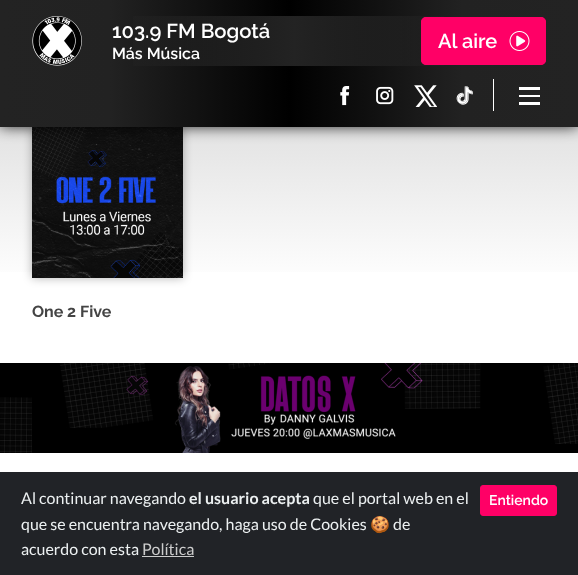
<svg xmlns="http://www.w3.org/2000/svg" width="578" height="575">
	<defs>
		<linearGradient id="g1" gradientUnits="userSpaceOnUse" x1="289" y1="-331" x2="289" y2="339"><stop offset="0.09" stop-color="#AEAEAE" /><stop offset="0.44" stop-color="#C5C5C5" /><stop offset="0.92" stop-color="#FFFFFF" /></linearGradient>
		<linearGradient id="g2" gradientUnits="userSpaceOnUse" x1="578" y1="63" x2="0" y2="64"><stop offset="0" stop-color="#232323" /><stop offset="0.2" stop-color="#222222" /><stop offset="0.5" stop-color="#000000" /><stop offset="0.81" stop-color="#222222" /><stop offset="1" stop-color="#232323" /></linearGradient>
		<radialGradient id="g3" gradientUnits="userSpaceOnUse" cx="0" cy="0" r="1" gradientTransform="matrix(544 0 0 6908 17 47)"><stop offset="0" stop-color="#232323" stop-opacity="0" /><stop offset="0.51" stop-color="#232323" /><stop offset="1" stop-color="#232323" stop-opacity="0" /></radialGradient>
	</defs>
	<rect width="100%" height="100%" fill="#FFFFFF" />
	<rect x="0" y="127" width="578" height="145" fill="url(#g1)" />
	<rect x="32" y="127" width="151" height="151" fill="#000000" fill-opacity="0.3" filter="blur(5px)" />
	<image x="32" y="127" width="151" height="151" href="assets/img7.png" />
	<rect x="0" y="-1" width="578" height="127" fill="#000000" fill-opacity="0.9" filter="blur(7.5px)" />
	<rect x="0" y="0" width="578" height="127" fill="url(#g2)" />
	<rect x="133" y="16" width="311" height="50" fill="url(#g3)" />
	<image x="32" y="16" width="50" height="50" href="assets/img1.png" />
	<text x="112" y="38" font-family="Raleway" font-size="20.25" font-weight="600" fill="#FFFFFF">103.9 FM Bogotá</text>
	<text x="112" y="59" font-family="Raleway" font-size="16" font-weight="600" fill="#FFFFFF">Más Música</text>
	<rect x="421" y="17" width="125" height="48" rx="5" fill="#FF0066" />
	<image x="509" y="31" width="21" height="20" href="assets/img2.png" />
	<rect x="421.5" y="17.5" width="124" height="47" rx="4.5" fill="none" stroke="#FF0066" />
	<text x="438" y="48" font-family="Raleway" font-size="20" font-weight="600" fill="#FFFFFF">Al aire</text>
	<image x="340" y="86" width="10" height="20" href="assets/img3.png" />
	<image x="376" y="86" width="18" height="19" href="assets/img4.png" />
	<image x="414" y="85" width="23" height="22" href="assets/img5.png" />
	<image x="456" y="86" width="17" height="19" href="assets/img6.png" />
	<rect x="493" y="79" width="1" height="32" fill="#FFFFFF" />
	<rect x="519" y="87" width="21" height="3" fill="#FFFFFF" />
	<rect x="519" y="95" width="21" height="2" fill="#FFFFFF" />
	<rect x="519" y="102" width="21" height="3" fill="#FFFFFF" />
	<text x="32" y="317" font-family="Raleway" font-size="16" font-weight="700" fill="#444444">One 2 Five</text>
	<image x="0" y="363" width="578" height="90" href="assets/img8.png" />
	<rect x="0" y="472" width="578" height="103" fill="#212327" />
	<text x="21" y="504" font-family="Lato" font-size="16" fill="#ECF0F1">Al continuar navegando</text>
	<text x="189" y="504" font-family="Lato" font-size="16" font-weight="700" fill="#ECF0F1">el usuario acepta</text>
	<g font-family="Lato" font-size="16" fill="#ECF0F1">
		<text x="313" y="504">que el portal web en el</text>
		<text x="21" y="530">que se encuentra navegando, haga uso de Cookies</text>
	</g>
	<text x="370" y="530" font-family="Noto Color Emoji" font-size="16" fill="#ECF0F1">🍪</text>
	<g font-family="Lato" font-size="16" fill="#ECF0F1">
		<text x="393" y="530">de</text>
		<text x="21" y="555">acuerdo con esta</text>
	</g>
	<text x="142" y="555" font-family="Lato" font-size="16" fill="#CCCCCC">Política</text>
	<rect x="142" y="556" width="52" height="1" fill="#CCCCCC" />
	<rect x="480.5" y="485.5" width="76" height="30" rx="2.5" fill="#FF0066" stroke="#FF0066" />
	<text x="489" y="505" font-family="Raleway" font-size="14" font-weight="600" fill="#FFFFFF">Entiendo</text>
</svg>
